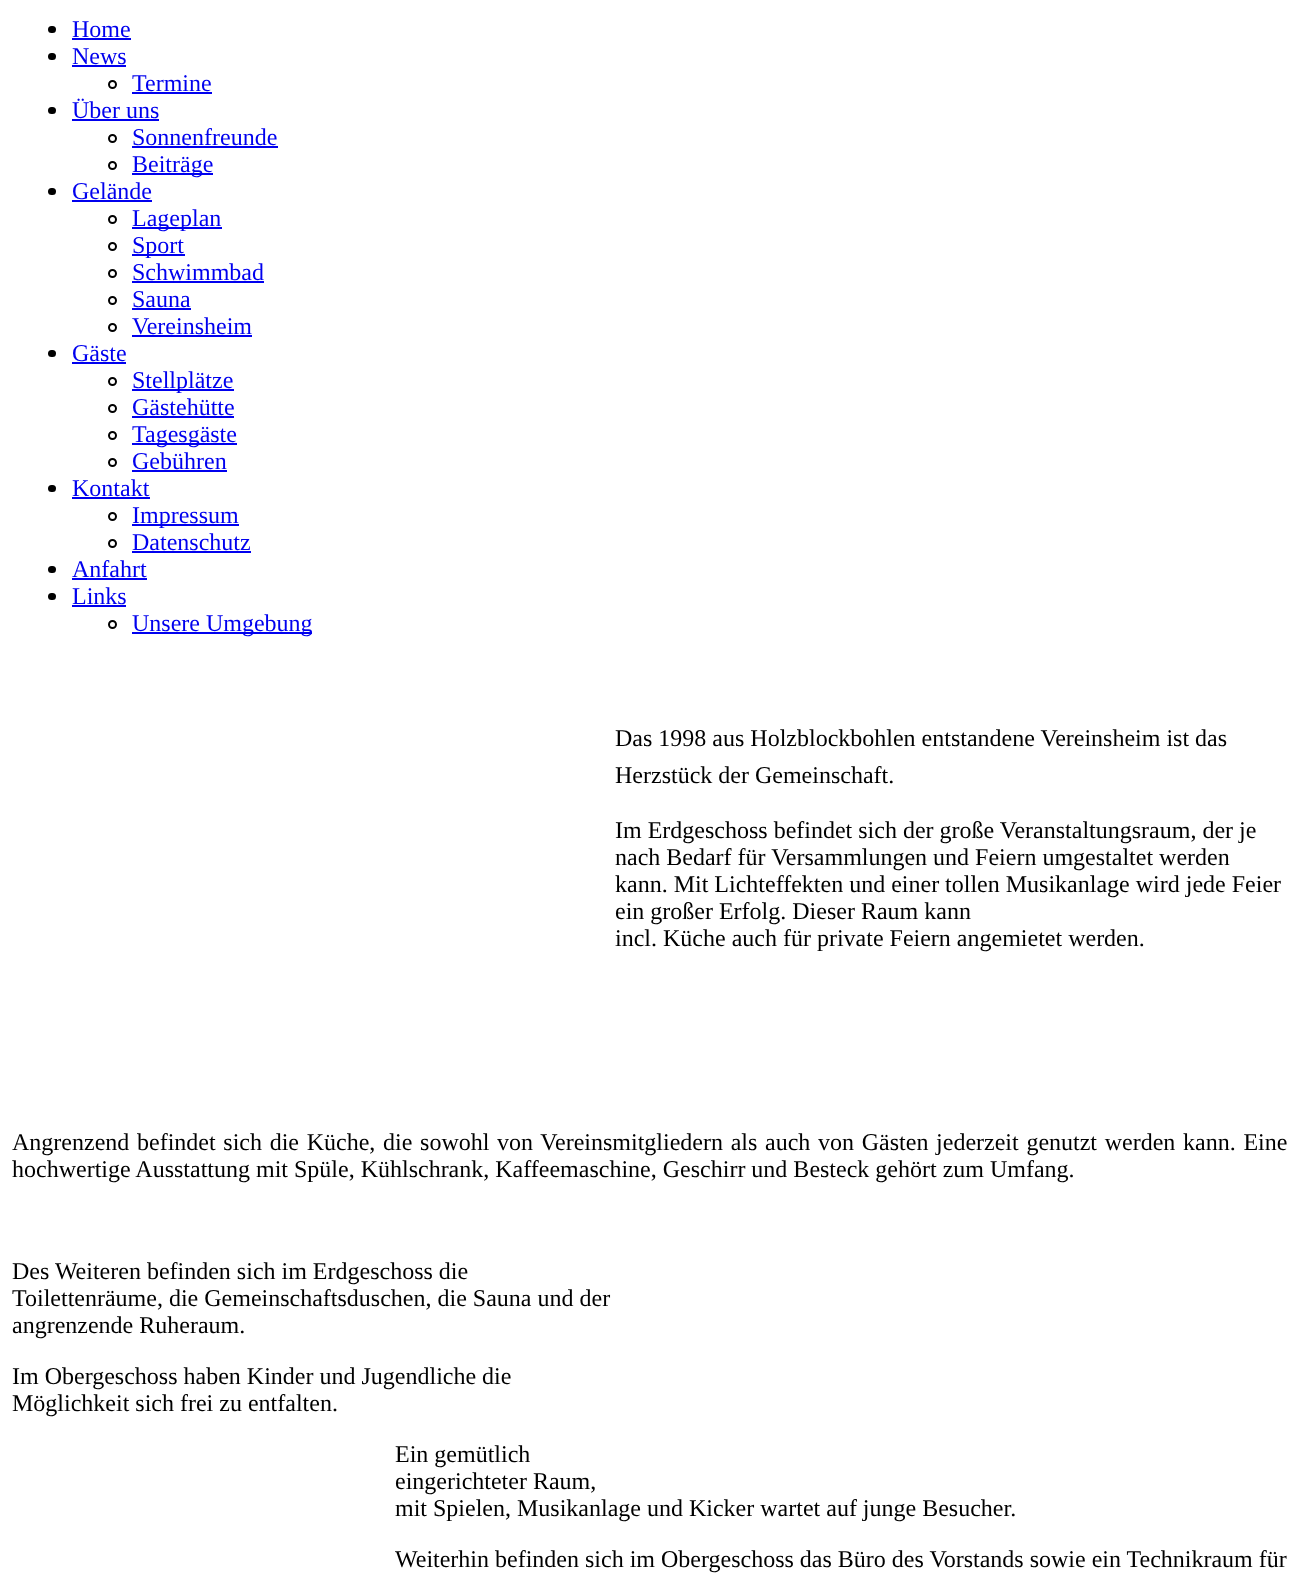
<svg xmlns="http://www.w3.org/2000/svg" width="1299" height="1573">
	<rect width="100%" height="100%" fill="#FFFFFF" />
	<rect x="48" y="26" width="8" height="7" rx="3.5" fill="#000000" />
	<text x="72" y="37" font-family="Liberation Serif" font-size="24" fill="#0000EE">Home</text>
	<rect x="72" y="38" width="59" height="2" fill="#0000EE" />
	<rect x="48" y="53" width="8" height="7" rx="3.5" fill="#000000" />
	<text x="72" y="64" font-family="Liberation Serif" font-size="24" fill="#0000EE">News</text>
	<rect x="72" y="65" width="54" height="2" fill="#0000EE" />
	<circle cx="112.5" cy="84.5" r="3.5" fill="none" stroke="#000000" stroke-width="2" />
	<text x="132" y="91" font-family="Liberation Serif" font-size="24" fill="#0000EE">Termine</text>
	<rect x="132" y="92" width="80" height="2" fill="#0000EE" />
	<rect x="48" y="107" width="8" height="7" rx="3.5" fill="#000000" />
	<text x="72" y="118" font-family="Liberation Serif" font-size="24" fill="#0000EE">Über uns</text>
	<rect x="72" y="119" width="87" height="2" fill="#0000EE" />
	<circle cx="112.5" cy="138.5" r="3.5" fill="none" stroke="#000000" stroke-width="2" />
	<text x="132" y="145" font-family="Liberation Serif" font-size="24" fill="#0000EE">Sonnenfreunde</text>
	<rect x="132" y="146" width="146" height="2" fill="#0000EE" />
	<circle cx="112.5" cy="165.5" r="3.5" fill="none" stroke="#000000" stroke-width="2" />
	<rect x="132" y="173" width="81" height="2" fill="#0000EE" />
	<text x="132" y="172" font-family="Liberation Serif" font-size="24" fill="#0000EE">Beiträge</text>
	<rect x="48" y="188" width="8" height="7" rx="3.5" fill="#000000" />
	<text x="72" y="199" font-family="Liberation Serif" font-size="24" fill="#0000EE">Gelände</text>
	<rect x="72" y="200" width="80" height="2" fill="#0000EE" />
	<circle cx="112.5" cy="219.5" r="3.5" fill="none" stroke="#000000" stroke-width="2" />
	<rect x="132" y="227" width="90" height="2" fill="#0000EE" />
	<text x="132" y="226" font-family="Liberation Serif" font-size="24" fill="#0000EE">Lageplan</text>
	<circle cx="112.5" cy="246.5" r="3.5" fill="none" stroke="#000000" stroke-width="2" />
	<rect x="132" y="254" width="53" height="2" fill="#0000EE" />
	<text x="132" y="253" font-family="Liberation Serif" font-size="24" fill="#0000EE">Sport</text>
	<circle cx="112.5" cy="273.5" r="3.5" fill="none" stroke="#000000" stroke-width="2" />
	<text x="132" y="280" font-family="Liberation Serif" font-size="24" fill="#0000EE">Schwimmbad</text>
	<rect x="132" y="281" width="132" height="2" fill="#0000EE" />
	<circle cx="112.5" cy="300.5" r="3.5" fill="none" stroke="#000000" stroke-width="2" />
	<text x="132" y="307" font-family="Liberation Serif" font-size="24" fill="#0000EE">Sauna</text>
	<rect x="132" y="308" width="59" height="2" fill="#0000EE" />
	<circle cx="112.5" cy="327.5" r="3.5" fill="none" stroke="#000000" stroke-width="2" />
	<text x="132" y="334" font-family="Liberation Serif" font-size="24" fill="#0000EE">Vereinsheim</text>
	<rect x="132" y="335" width="120" height="2" fill="#0000EE" />
	<rect x="48" y="350" width="8" height="7" rx="3.5" fill="#000000" />
	<text x="72" y="361" font-family="Liberation Serif" font-size="24" fill="#0000EE">Gäste</text>
	<rect x="72" y="362" width="54" height="2" fill="#0000EE" />
	<circle cx="112.5" cy="381.5" r="3.5" fill="none" stroke="#000000" stroke-width="2" />
	<rect x="132" y="389" width="102" height="2" fill="#0000EE" />
	<text x="132" y="388" font-family="Liberation Serif" font-size="24" fill="#0000EE">Stellplätze</text>
	<circle cx="112.5" cy="408.5" r="3.5" fill="none" stroke="#000000" stroke-width="2" />
	<text x="132" y="415" font-family="Liberation Serif" font-size="24" fill="#0000EE">Gästehütte</text>
	<rect x="132" y="416" width="102" height="2" fill="#0000EE" />
	<circle cx="112.5" cy="435.5" r="3.5" fill="none" stroke="#000000" stroke-width="2" />
	<rect x="132" y="443" width="105" height="2" fill="#0000EE" />
	<text x="132" y="442" font-family="Liberation Serif" font-size="24" fill="#0000EE">Tagesgäste</text>
	<circle cx="112.5" cy="462.5" r="3.5" fill="none" stroke="#000000" stroke-width="2" />
	<text x="132" y="469" font-family="Liberation Serif" font-size="24" fill="#0000EE">Gebühren</text>
	<rect x="132" y="470" width="95" height="2" fill="#0000EE" />
	<rect x="48" y="485" width="8" height="7" rx="3.5" fill="#000000" />
	<text x="72" y="496" font-family="Liberation Serif" font-size="24" fill="#0000EE">Kontakt</text>
	<rect x="72" y="497" width="78" height="2" fill="#0000EE" />
	<circle cx="112.5" cy="516.5" r="3.5" fill="none" stroke="#000000" stroke-width="2" />
	<rect x="132" y="524" width="107" height="2" fill="#0000EE" />
	<text x="132" y="523" font-family="Liberation Serif" font-size="24" fill="#0000EE">Impressum</text>
	<circle cx="112.5" cy="543.5" r="3.5" fill="none" stroke="#000000" stroke-width="2" />
	<text x="132" y="550" font-family="Liberation Serif" font-size="24" fill="#0000EE">Datenschutz</text>
	<rect x="132" y="551" width="119" height="2" fill="#0000EE" />
	<rect x="48" y="566" width="8" height="7" rx="3.5" fill="#000000" />
	<text x="72" y="577" font-family="Liberation Serif" font-size="24" fill="#0000EE">Anfahrt</text>
	<rect x="72" y="578" width="75" height="2" fill="#0000EE" />
	<rect x="48" y="593" width="8" height="7" rx="3.5" fill="#000000" />
	<text x="72" y="604" font-family="Liberation Serif" font-size="24" fill="#0000EE">Links</text>
	<rect x="72" y="605" width="54" height="2" fill="#0000EE" />
	<circle cx="112.5" cy="624.5" r="3.5" fill="none" stroke="#000000" stroke-width="2" />
	<rect x="132" y="632" width="180" height="2" fill="#0000EE" />
	<text x="132" y="631" font-family="Liberation Serif" font-size="24" fill="#0000EE">Unsere Umgebung</text>
	<g font-family="Liberation Serif" font-size="24" fill="#000000">
		<text x="615" y="746">Das 1998 aus Holzblockbohlen entstandene Vereinsheim ist das</text>
		<text x="615" y="783">Herzstück der Gemeinschaft.</text>
		<text x="615" y="838">Im Erdgeschoss befindet sich der große Veranstaltungsraum, der je</text>
		<text x="615" y="865">nach Bedarf für Versammlungen und Feiern umgestaltet werden</text>
		<text x="615" y="892">kann. Mit Lichteffekten und einer tollen Musikanlage wird jede Feier</text>
		<text x="615" y="919">ein großer Erfolg. Dieser Raum kann</text>
		<text x="615" y="946">incl. Küche auch für private Feiern angemietet werden.</text>
		<text x="12" y="1150" word-spacing="1.7">Angrenzend befindet sich die Küche, die sowohl von Vereinsmitgliedern als auch von Gästen jederzeit genutzt werden kann. Eine</text>
		<text x="12" y="1177">hochwertige Ausstattung mit Spüle, Kühlschrank, Kaffeemaschine, Geschirr und Besteck gehört zum Umfang.</text>
		<text x="12" y="1279">Des Weiteren befinden sich im Erdgeschoss die</text>
		<text x="12" y="1306">Toilettenräume, die Gemeinschaftsduschen, die Sauna und der</text>
		<text x="12" y="1333">angrenzende Ruheraum.</text>
		<text x="12" y="1384">Im Obergeschoss haben Kinder und Jugendliche die</text>
		<text x="12" y="1411">Möglichkeit sich frei zu entfalten.</text>
		<text x="395" y="1462">Ein gemütlich</text>
		<text x="395" y="1489">eingerichteter Raum,</text>
		<text x="395" y="1516">mit Spielen, Musikanlage und Kicker wartet auf junge Besucher.</text>
		<text x="395" y="1567">Weiterhin befinden sich im Obergeschoss das Büro des Vorstands sowie ein Technikraum für</text>
	</g>
</svg>
